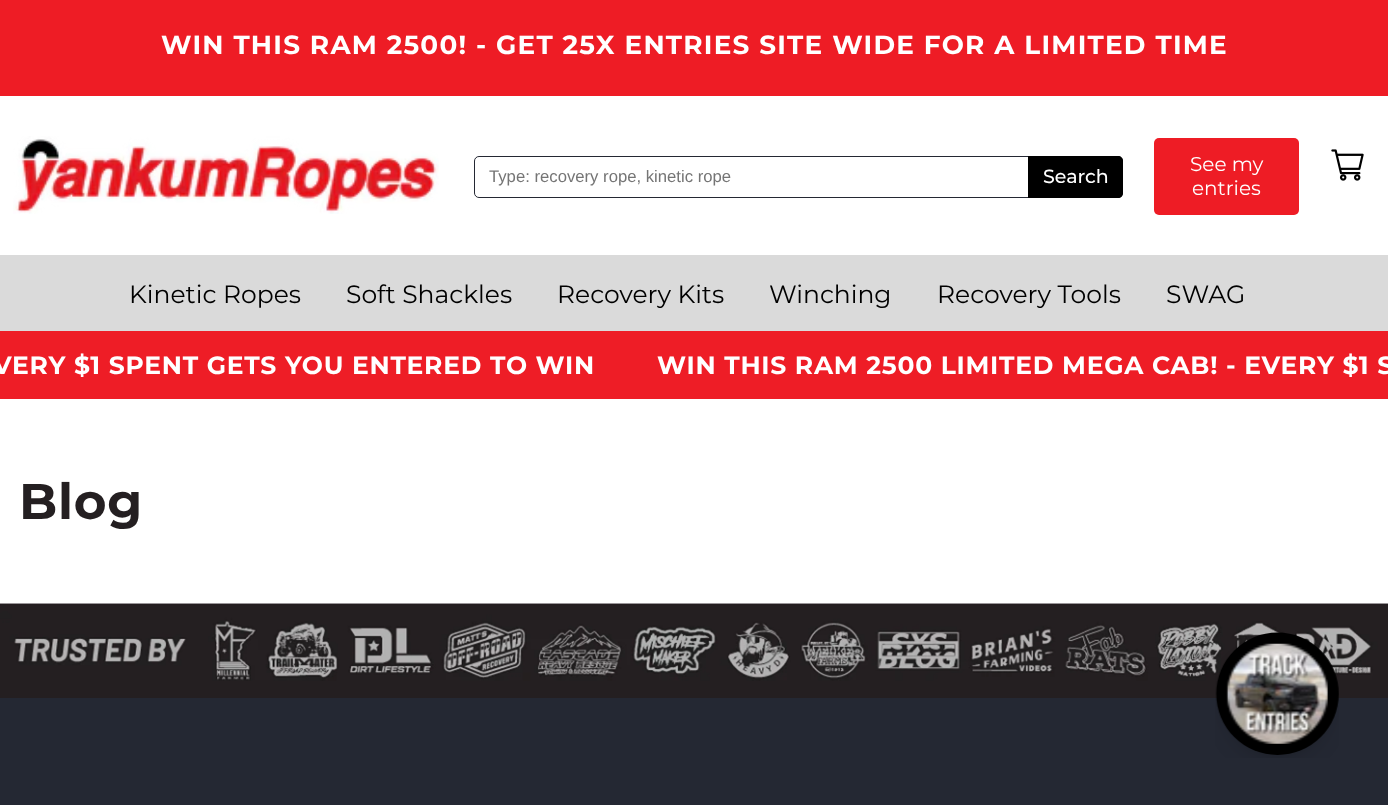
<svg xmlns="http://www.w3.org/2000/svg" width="1388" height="805">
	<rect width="100%" height="100%" fill="#FFFFFF" />
	<rect x="0" y="0" width="1388" height="96" fill="#EE1C25" />
	<text x="161" y="54" font-family="Montserrat" font-size="26.25" font-weight="700" letter-spacing="1.25" fill="#FFFFFF">WIN THIS RAM 2500! - GET 25X ENTRIES SITE WIDE FOR A LIMITED TIME</text>
	<rect x="0" y="255" width="1388" height="76" fill="#DADADA" />
	<image x="13" y="136" width="426" height="78" href="assets/img1.png" />
	<rect x="474.5" y="156.5" width="648" height="41" rx="4.5" fill="none" stroke="#242833" />
	<text x="489" y="182" font-family="Liberation Sans" font-size="16.7" fill="#757575">Type: recovery rope, kinetic rope</text>
	<path d="M1028 156H1118C1121 156 1123 158 1123 161V193C1123 196 1121 198 1118 198H1028Z" fill="#000000" />
	<text x="1043" y="183" font-family="Montserrat" font-size="19" font-weight="500" fill="#FFFFFF">Search</text>
	<rect x="1154" y="138" width="145" height="77" rx="5" fill="#EE1C25" />
	<g font-family="Montserrat" font-size="20" fill="#FFFFFF">
		<text x="1190" y="171">See my</text>
		<text x="1192" y="195">entries</text>
	</g>
	<image x="1331" y="149" width="33" height="32" href="assets/img2.png" />
	<g font-family="Montserrat" font-size="25" fill="#000000">
		<text x="129" y="303">Kinetic Ropes</text>
		<text x="346" y="303">Soft Shackles</text>
		<text x="557" y="303">Recovery Kits</text>
		<text x="769" y="303">Winching</text>
		<text x="937" y="303">Recovery Tools</text>
		<text x="1166" y="303">SWAG</text>
	</g>
	<rect x="0" y="331" width="1388" height="68" fill="#EE1D26" />
	<g font-family="Montserrat" font-size="25" font-weight="700" letter-spacing="0.75" fill="#FFFFFF">
		<text x="-7" y="374">VERY $1 SPENT GETS YOU ENTERED TO WIN</text>
		<text x="657" y="374">WIN THIS RAM 2500 LIMITED MEGA CAB! - EVERY $1 S</text>
	</g>
	<text x="19" y="519" font-family="Montserrat" font-size="50" font-weight="700" letter-spacing="0.75" fill="#241F21">Blog</text>
	<rect x="0" y="604" width="1388" height="94" fill="#241F21" />
	<image x="0" y="603" width="1388" height="78" href="assets/img3.png" />
	<rect x="0" y="698" width="1388" height="107" fill="#242833" />
	<image x="1215" y="632" width="124" height="126" href="assets/img4.png" />
</svg>
